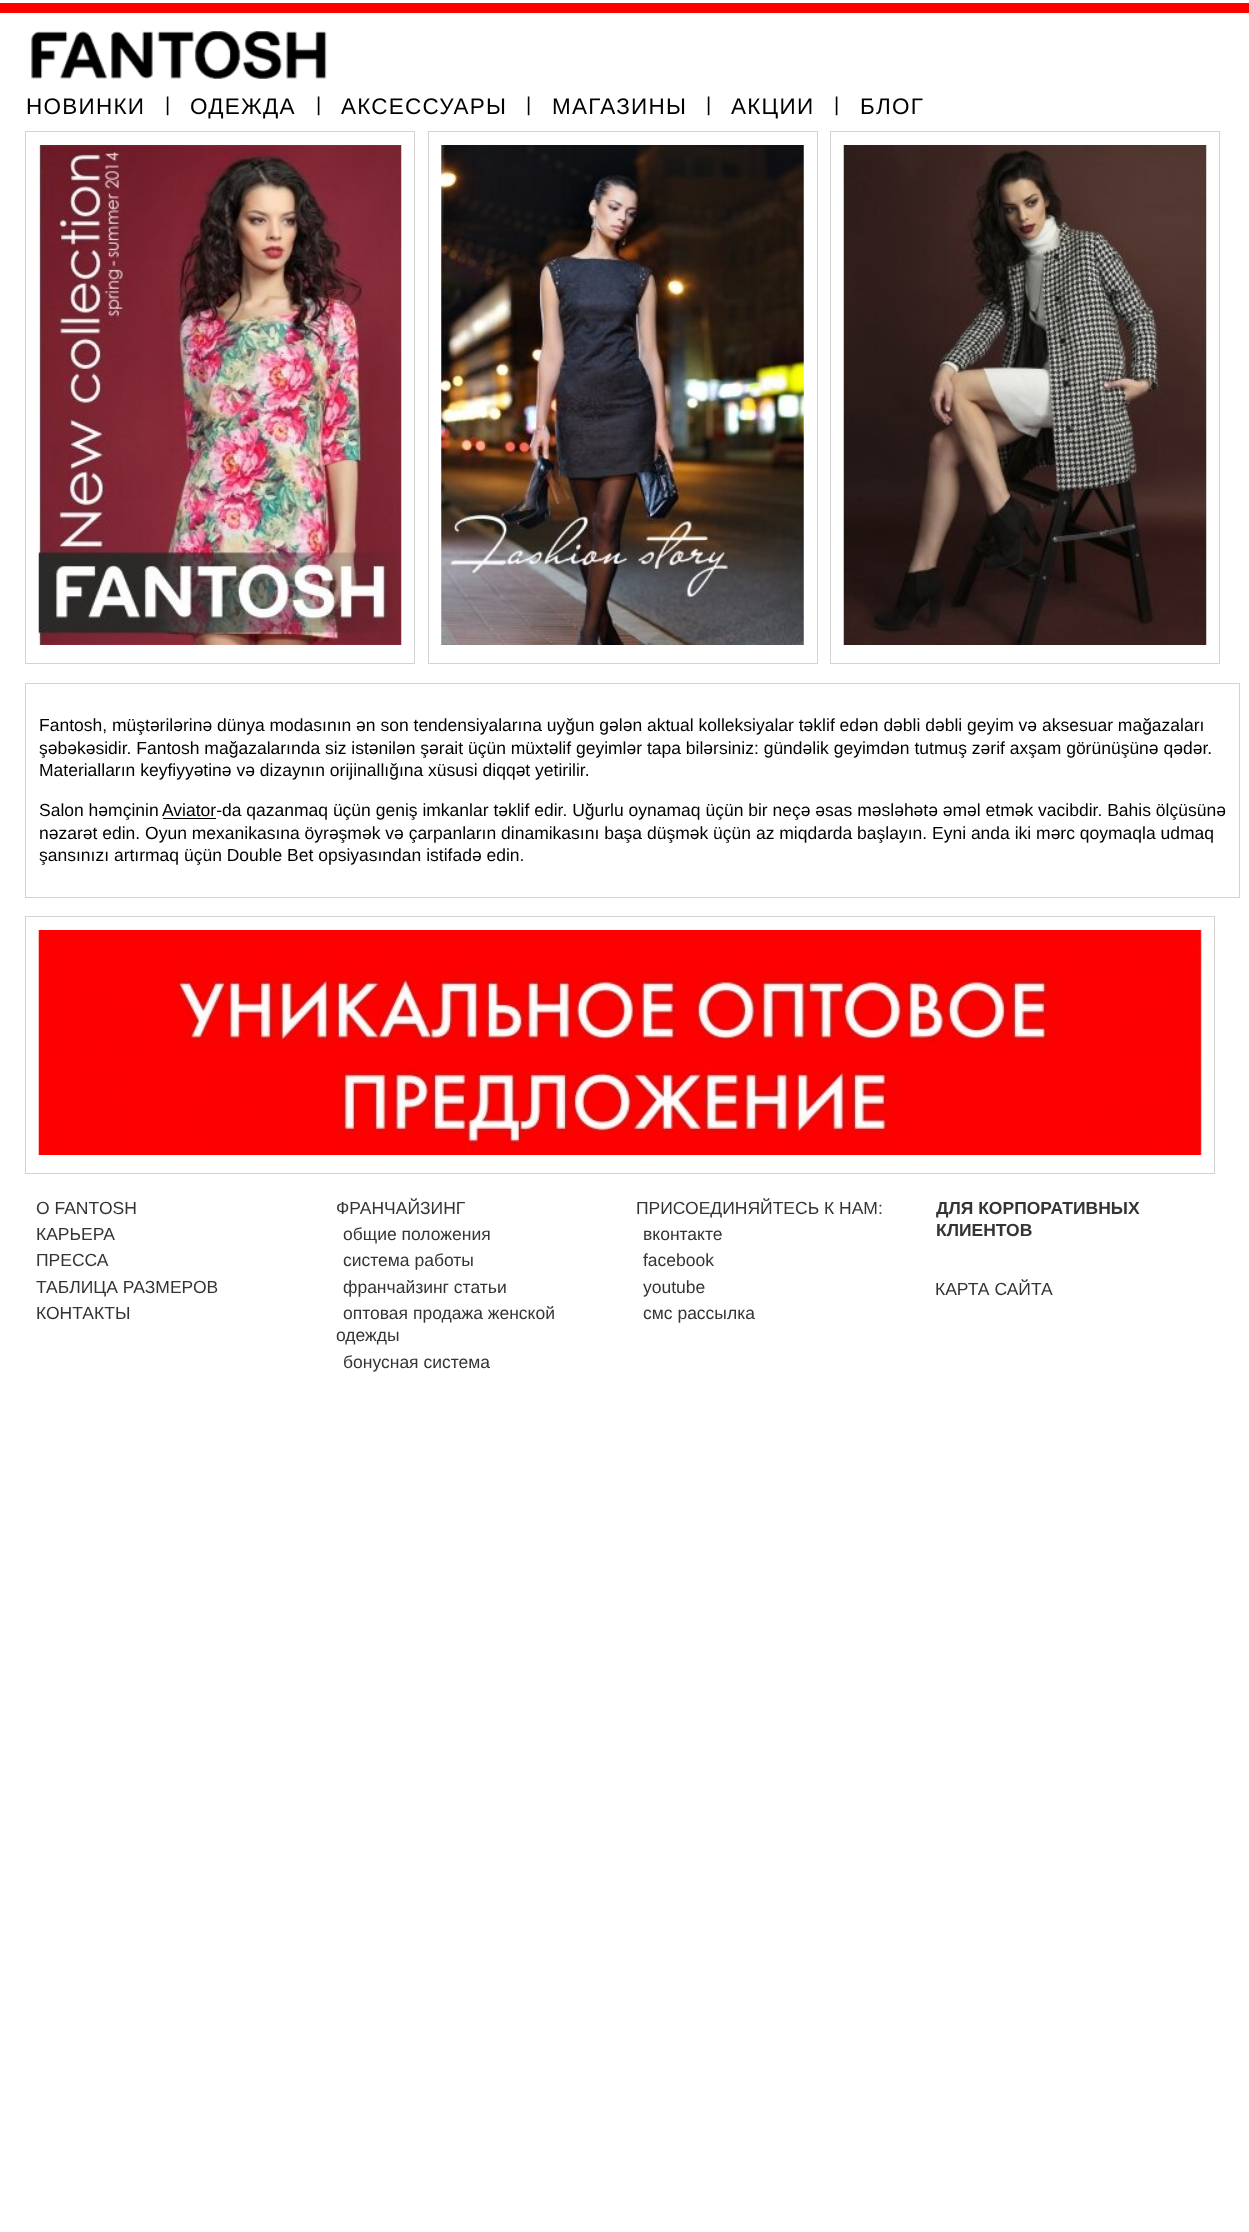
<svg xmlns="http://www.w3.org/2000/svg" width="1249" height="2232">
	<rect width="100%" height="100%" fill="#FFFFFF" />
	<rect x="0" y="3" width="1249" height="10" fill="#FE0000" />
	<image x="31" y="31" width="296" height="48" href="assets/img1.png" />
	<text x="26" y="114" font-family="Liberation Sans" font-size="22.5" letter-spacing="1.25" fill="#000000">НОВИНКИ</text>
	<text x="165" y="111" font-family="Liberation Sans" font-size="20" fill="#000000">|</text>
	<text x="190" y="114" font-family="Liberation Sans" font-size="22.5" letter-spacing="1.25" fill="#000000">ОДЕЖДА</text>
	<text x="316" y="111" font-family="Liberation Sans" font-size="20" fill="#000000">|</text>
	<text x="341" y="114" font-family="Liberation Sans" font-size="22.5" letter-spacing="1.25" fill="#000000">АКСЕССУАРЫ</text>
	<text x="526" y="111" font-family="Liberation Sans" font-size="20" fill="#000000">|</text>
	<text x="552" y="114" font-family="Liberation Sans" font-size="22.5" letter-spacing="1.25" fill="#000000">МАГАЗИНЫ</text>
	<text x="706" y="111" font-family="Liberation Sans" font-size="20" fill="#000000">|</text>
	<text x="731" y="114" font-family="Liberation Sans" font-size="22.5" letter-spacing="1.25" fill="#000000">АКЦИИ</text>
	<text x="834" y="111" font-family="Liberation Sans" font-size="20" fill="#000000">|</text>
	<text x="860" y="114" font-family="Liberation Sans" font-size="22.5" letter-spacing="1.25" fill="#000000">БЛОГ</text>
	<rect x="25.5" y="131.5" width="389" height="532" fill="none" stroke="#D3D3D3" />
	<image x="38" y="145" width="364" height="500" href="assets/img2.png" />
	<rect x="428.5" y="131.5" width="389" height="532" fill="none" stroke="#D3D3D3" />
	<image x="441" y="145" width="363" height="500" href="assets/img3.png" />
	<rect x="830.5" y="131.5" width="389" height="532" fill="none" stroke="#D3D3D3" />
	<image x="843" y="145" width="364" height="500" href="assets/img4.png" />
	<rect x="25.5" y="683.5" width="1214" height="214" fill="none" stroke="#D3D3D3" />
	<g font-family="Liberation Sans" font-size="17.5" fill="#000000">
		<text x="39" y="731">Fantosh, müştərilərinə dünya modasının ən son tendensiyalarına uyğun gələn aktual kolleksiyalar təklif edən dəbli dəbli geyim və aksesuar mağazaları</text>
		<text x="39" y="754">şəbəkəsidir. Fantosh mağazalarında siz istənilən şərait üçün müxtəlif geyimlər tapa bilərsiniz: gündəlik geyimdən tutmuş zərif axşam görünüşünə qədər.</text>
		<text x="39" y="776">Materialların keyfiyyətinə və dizaynın orijinallığına xüsusi diqqət yetirilir.</text>
		<text x="39" y="816">Salon həmçinin</text>
	</g>
	<rect x="163" y="818" width="53" height="1" fill="#000000" />
	<g font-family="Liberation Sans" font-size="17.5" fill="#000000">
		<text x="162" y="816">Aviator-da qazanmaq üçün geniş imkanlar təklif edir. Uğurlu oynamaq üçün bir neçə əsas məsləhətə əməl etmək vacibdir. Bahis ölçüsünə</text>
		<text x="39" y="839">nəzarət edin. Oyun mexanikasına öyrəşmək və çarpanların dinamikasını başa düşmək üçün az miqdarda başlayın. Eyni anda iki mərc qoymaqla udmaq</text>
		<text x="39" y="861">şansınızı artırmaq üçün Double Bet opsiyasından istifadə edin.</text>
	</g>
	<rect x="25.5" y="916.5" width="1189" height="257" fill="none" stroke="#D3D3D3" />
	<image x="38" y="930" width="1164" height="225" href="assets/img5.png" />
	<g font-family="Liberation Sans" font-size="17.5" fill="#343434">
		<text x="36" y="1214">О FANTOSH</text>
		<text x="36" y="1240">КАРЬЕРА</text>
		<text x="36" y="1266">ПРЕССА</text>
		<text x="36" y="1293">ТАБЛИЦА РАЗМЕРОВ</text>
		<text x="36" y="1319">КОНТАКТЫ</text>
		<text x="336" y="1214">ФРАНЧАЙЗИНГ</text>
		<text x="343" y="1240">общие положения</text>
		<text x="343" y="1266">система работы</text>
		<text x="343" y="1293">франчайзинг статьи</text>
		<text x="343" y="1319">оптовая продажа женской</text>
		<text x="336" y="1341">одежды</text>
		<text x="343" y="1368">бонусная система</text>
		<text x="636" y="1214">ПРИСОЕДИНЯЙТЕСЬ К НАМ:</text>
		<text x="643" y="1240">вконтакте</text>
		<text x="643" y="1266">facebook</text>
		<text x="643" y="1293">youtube</text>
		<text x="643" y="1319">смс рассылка</text>
	</g>
	<g font-family="Liberation Sans" font-size="17.5" font-weight="700" fill="#343434">
		<text x="936" y="1214">ДЛЯ КОРПОРАТИВНЫХ</text>
		<text x="936" y="1236">КЛИЕНТОВ</text>
	</g>
	<text x="935" y="1295" font-family="Liberation Sans" font-size="17.5" fill="#343434">КАРТА САЙТА</text>
</svg>
